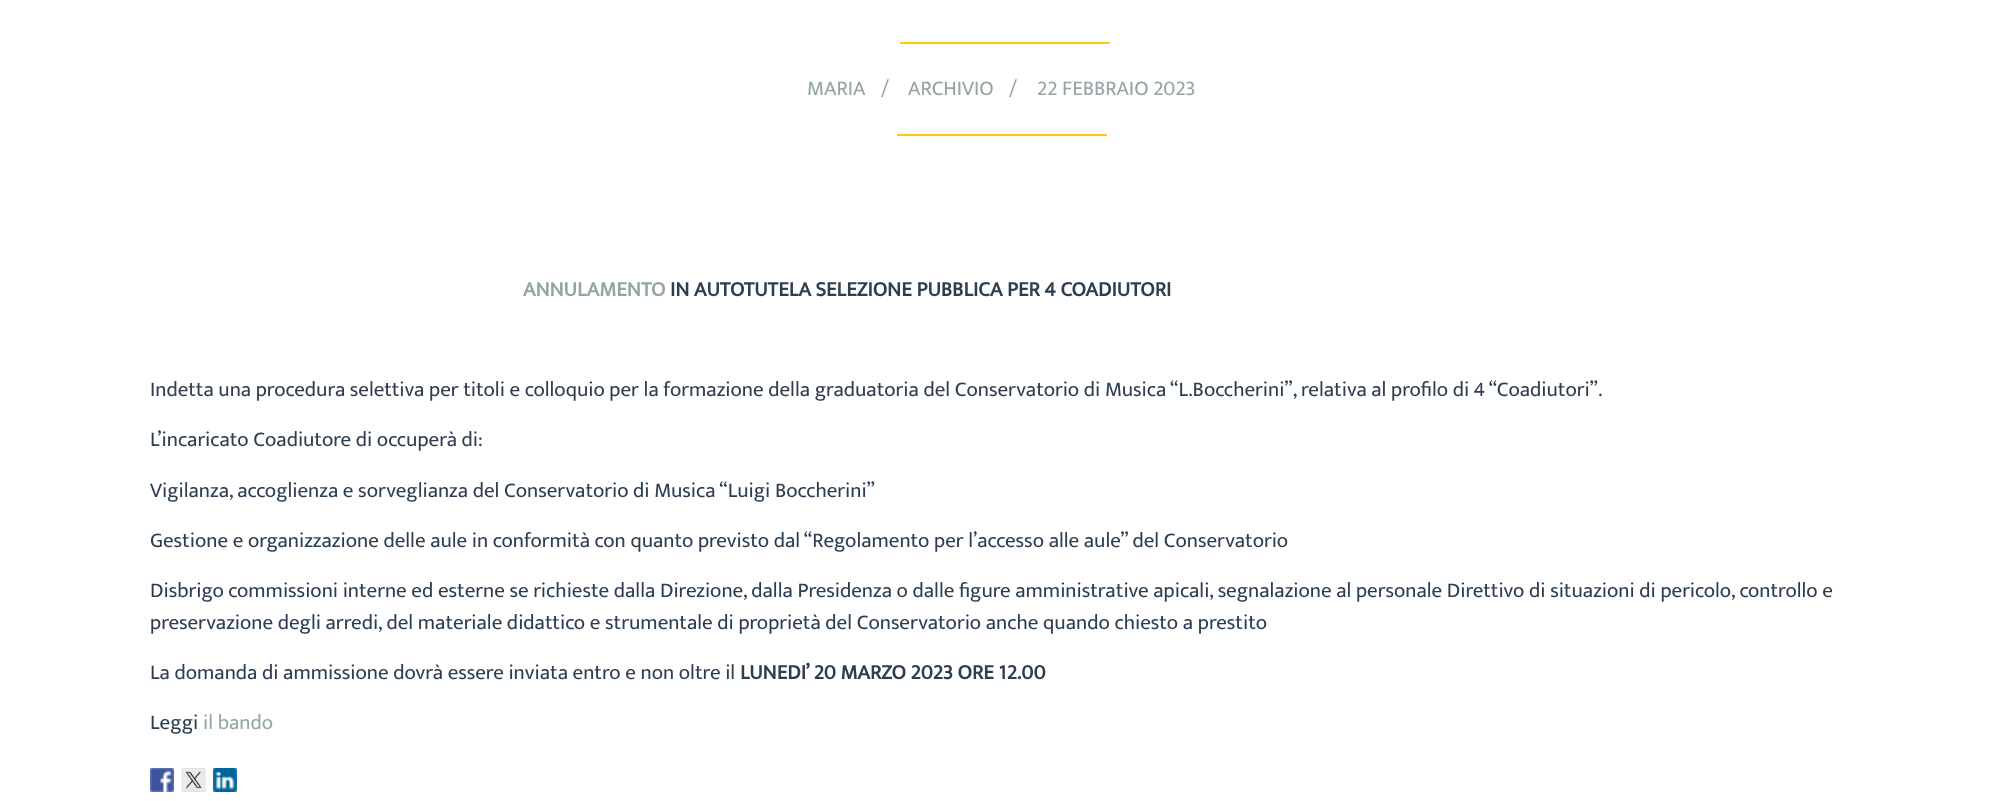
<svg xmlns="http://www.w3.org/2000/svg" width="2009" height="801">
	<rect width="100%" height="100%" fill="#FFFFFF" />
	<rect x="900" y="42" width="210" height="2" fill="#FFCC0D" />
	<g font-family="Ek Mukta" font-size="21" fill="#95A5A6">
		<text x="807" y="95">MARIA</text>
		<text x="881" y="95">/</text>
		<text x="908" y="95">ARCHIVIO</text>
		<text x="1009" y="95">/</text>
		<text x="1037" y="95">22 FEBBRAIO 2023</text>
	</g>
	<rect x="897" y="134" width="210" height="2" fill="#FFCC0D" />
	<text x="523" y="296" font-family="Ek Mukta" font-size="21" font-weight="700" fill="#95A5A6">ANNULAMENTO</text>
	<text x="670" y="296" font-family="Ek Mukta" font-size="21" font-weight="700" fill="#2C3E50">IN AUTOTUTELA SELEZIONE PUBBLICA PER 4 COADIUTORI</text>
	<g font-family="Ek Mukta" font-size="21" fill="#2C3E50">
		<text x="150" y="396">Indetta una procedura selettiva per titoli e colloquio per la formazione della graduatoria del Conservatorio di Musica “L.Boccherini”, relativa al profilo di 4 “Coadiutori”.</text>
		<text x="150" y="446">L’incaricato Coadiutore di occuperà di:</text>
		<text x="150" y="497">Vigilanza, accoglienza e sorveglianza del Conservatorio di Musica “Luigi Boccherini”</text>
		<text x="150" y="547">Gestione e organizzazione delle aule in conformità con quanto previsto dal “Regolamento per l’accesso alle aule” del Conservatorio</text>
		<text x="150" y="597">Disbrigo commissioni interne ed esterne se richieste dalla Direzione, dalla Presidenza o dalle figure amministrative apicali, segnalazione al personale Direttivo di situazioni di pericolo, controllo e</text>
		<text x="150" y="629">preservazione degli arredi, del materiale didattico e strumentale di proprietà del Conservatorio anche quando chiesto a prestito</text>
		<text x="150" y="679">La domanda di ammissione dovrà essere inviata entro e non oltre il</text>
	</g>
	<text x="740" y="679" font-family="Ek Mukta" font-size="21" font-weight="700" fill="#2C3E50">LUNEDI’ 20 MARZO 2023 ORE 12.00</text>
	<text x="150" y="729" font-family="Ek Mukta" font-size="21" fill="#2C3E50">Leggi</text>
	<text x="203" y="729" font-family="Ek Mukta" font-size="21" fill="#95A5A6">il bando</text>
	<image x="150" y="768" width="24" height="24" href="assets/img1.png" />
	<image x="181" y="768" width="25" height="24" href="assets/img2.png" />
	<image x="213" y="768" width="24" height="24" href="assets/img3.png" />
</svg>
